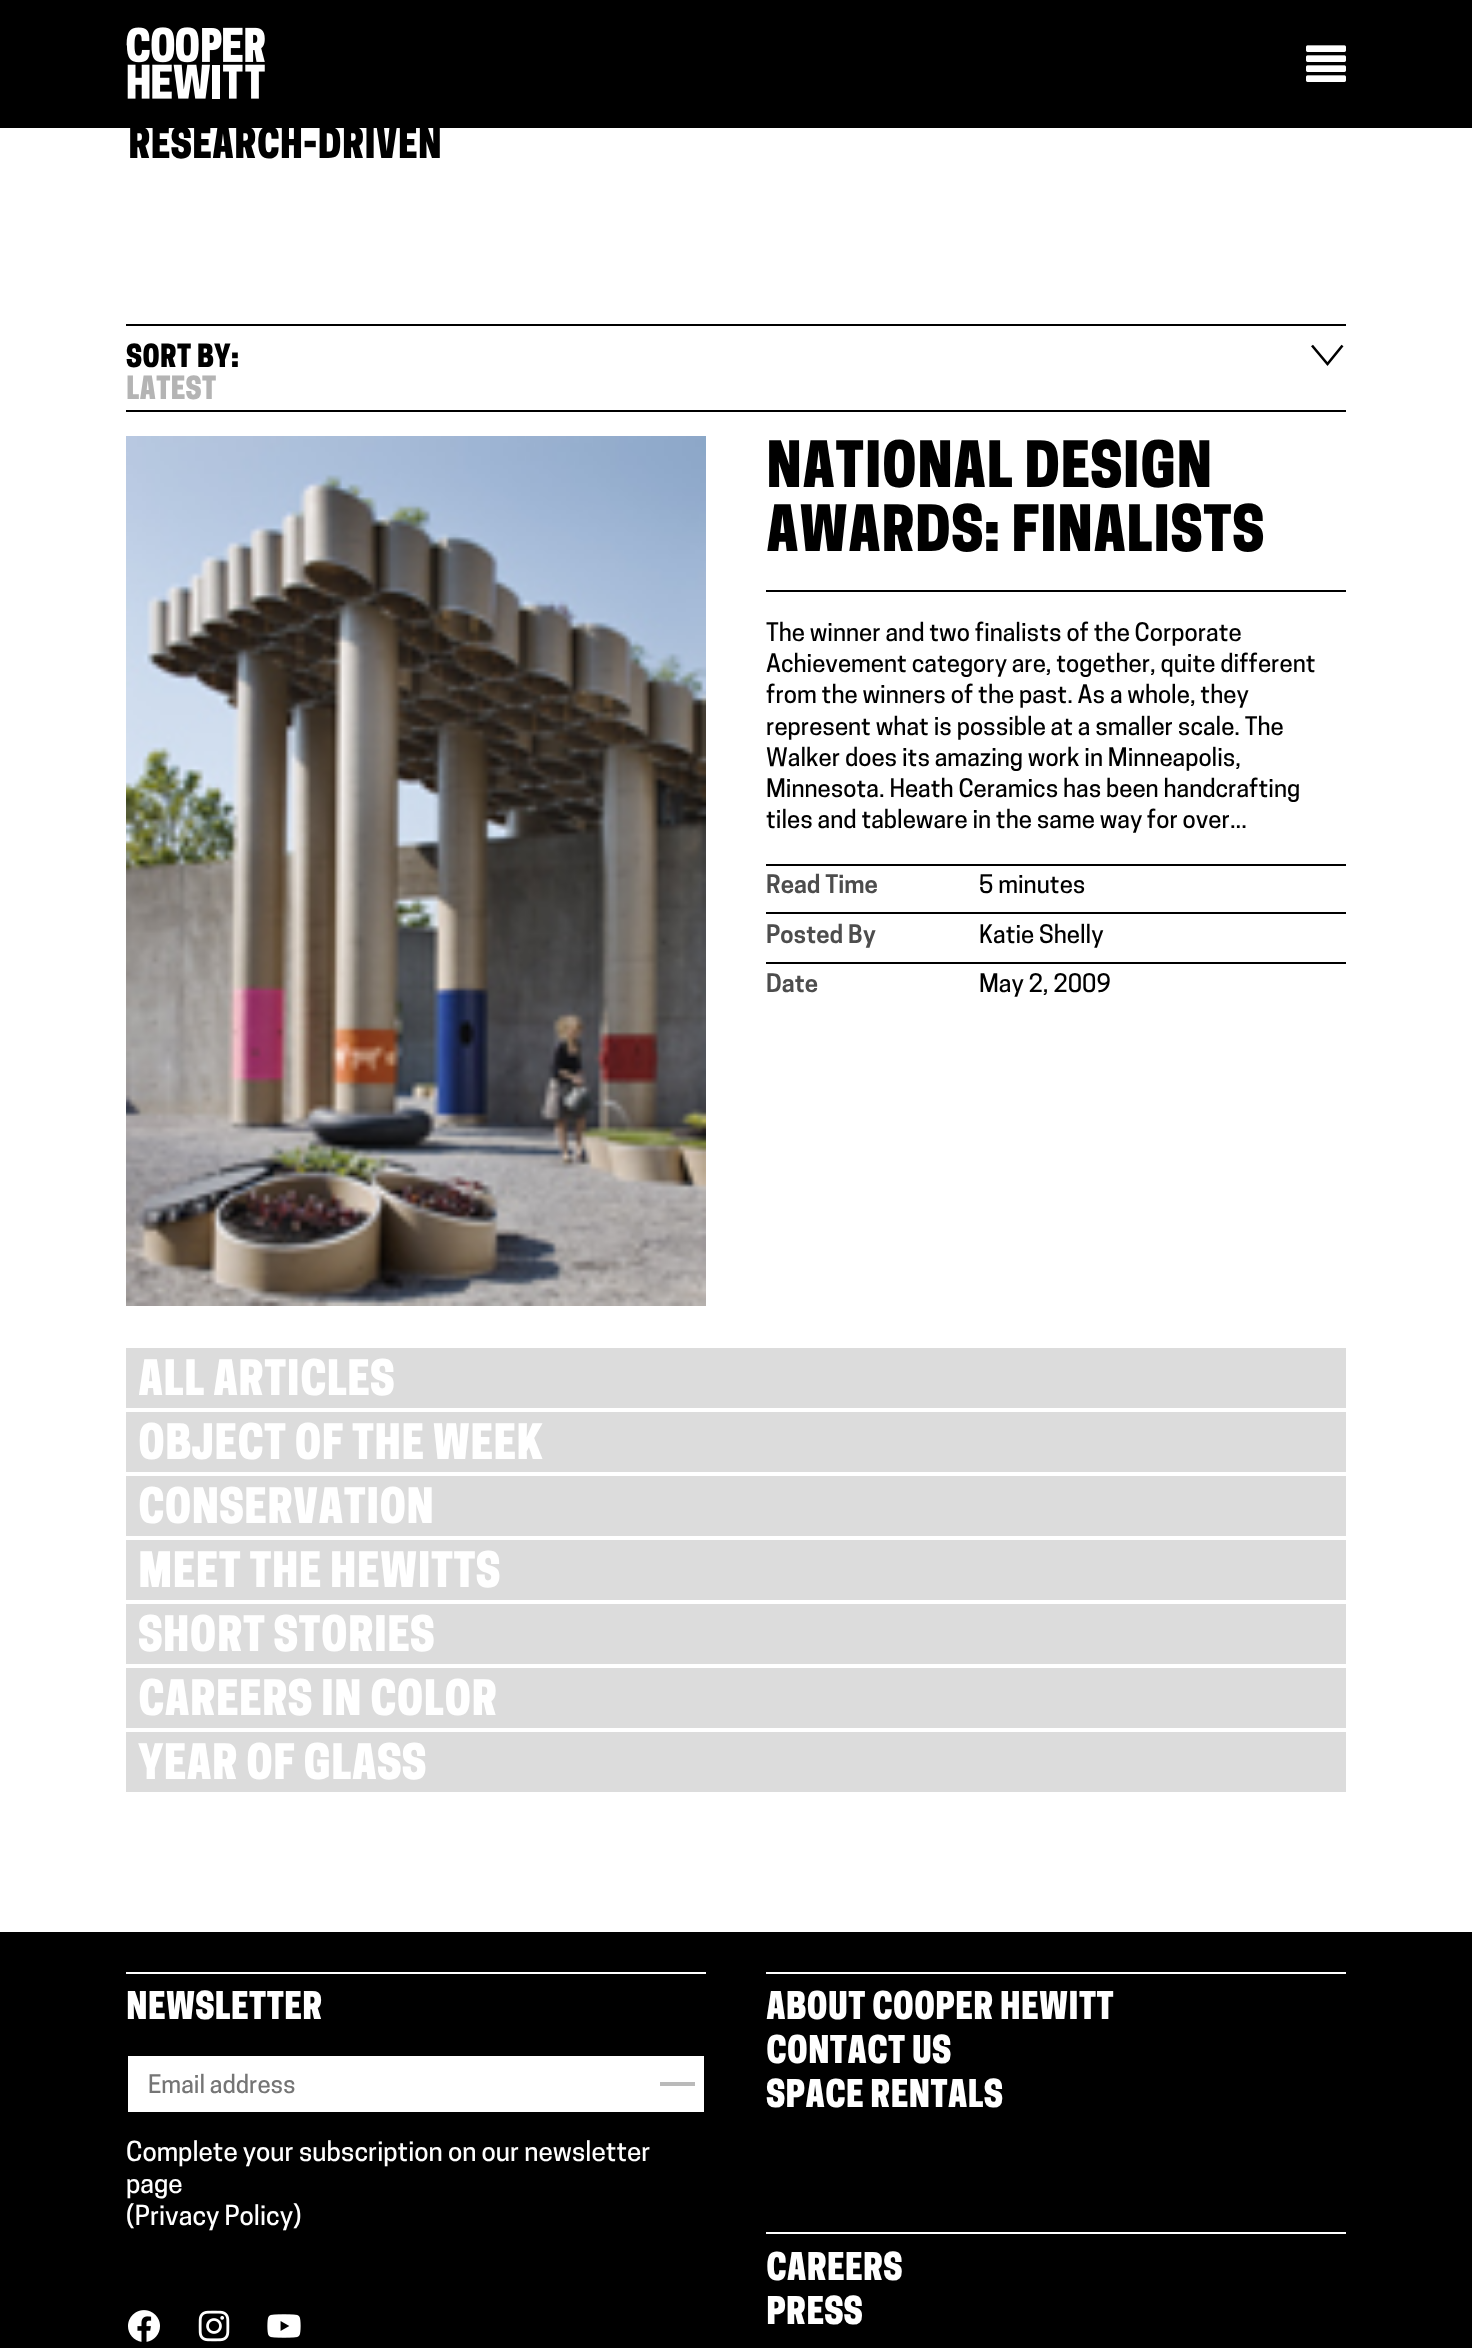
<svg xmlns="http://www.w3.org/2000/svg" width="1472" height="2348">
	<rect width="100%" height="100%" fill="#FFFFFF" />
	<rect x="0" y="0" width="1472" height="128" fill="#000000" />
	<image x="126" y="27" width="139" height="72" href="assets/img1.png" />
	<image x="1306" y="45" width="40" height="37" href="assets/img2.png" />
	<text x="128" y="158" font-family="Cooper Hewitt" font-size="40" font-weight="600" fill="#000000">RESEARCH-DRIVEN</text>
	<rect x="126" y="324" width="1220" height="2" fill="#000000" />
	<text x="126" y="367" font-family="Cooper Hewitt" font-size="30" font-weight="600" fill="#000000">SORT BY:</text>
	<path d="M1342.5 345.5L1327.5 364L1312 345.5" fill="none" stroke="#000000" stroke-width="2.6" />
	<text x="126" y="399" font-family="Cooper Hewitt" font-size="30" font-weight="600" fill="#B4B4B4">LATEST</text>
	<rect x="126" y="410" width="1220" height="2" fill="#000000" />
	<image x="126" y="436" width="580" height="870" href="assets/img3.png" />
	<g font-family="Cooper Hewitt" font-size="60" font-weight="600" fill="#000000">
		<text x="766" y="487">NATIONAL DESIGN</text>
		<text x="766" y="551">AWARDS: FINALISTS</text>
	</g>
	<rect x="766" y="590" width="580" height="2" fill="#000000" />
	<g font-family="Cooper Hewitt" font-size="24" font-weight="500" fill="#000000">
		<text x="766" y="641">The winner and two finalists of the Corporate</text>
		<text x="766" y="672">Achievement category are, together, quite different</text>
		<text x="766" y="703">from the winners of the past. As a whole, they</text>
		<text x="766" y="735">represent what is possible at a smaller scale. The</text>
		<text x="766" y="766">Walker does its amazing work in Minneapolis,</text>
		<text x="766" y="797">Minnesota. Heath Ceramics has been handcrafting</text>
		<text x="766" y="828">tiles and tableware in the same way for over...</text>
	</g>
	<rect x="766" y="864" width="580" height="2" fill="#000000" />
	<text x="766" y="893" font-family="'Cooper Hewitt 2'" font-size="24" font-weight="600" fill="#4D4D4D">Read Time</text>
	<text x="979" y="893" font-family="Cooper Hewitt" font-size="24" font-weight="500" fill="#000000">5 minutes</text>
	<rect x="766" y="912" width="580" height="2" fill="#000000" />
	<text x="766" y="943" font-family="'Cooper Hewitt 2'" font-size="24" font-weight="600" fill="#4D4D4D">Posted By</text>
	<text x="979" y="943" font-family="Cooper Hewitt" font-size="24" font-weight="500" fill="#000000">Katie Shelly</text>
	<rect x="766" y="962" width="580" height="2" fill="#000000" />
	<text x="766" y="992" font-family="'Cooper Hewitt 2'" font-size="24" font-weight="600" fill="#4D4D4D">Date</text>
	<text x="979" y="992" font-family="Cooper Hewitt" font-size="24" font-weight="500" fill="#000000">May 2, 2009</text>
	<rect x="126" y="1348" width="1220" height="60" fill="#DCDCDC" />
	<text x="138" y="1395" font-family="Cooper Hewitt" font-size="46" font-weight="600" fill="#FFFFFF">ALL ARTICLES</text>
	<rect x="126" y="1412" width="1220" height="60" fill="#DCDCDC" />
	<text x="138" y="1459" font-family="Cooper Hewitt" font-size="46" font-weight="600" fill="#FFFFFF">OBJECT OF THE WEEK</text>
	<rect x="126" y="1476" width="1220" height="60" fill="#DCDCDC" />
	<text x="138" y="1523" font-family="Cooper Hewitt" font-size="46" font-weight="600" fill="#FFFFFF">CONSERVATION</text>
	<rect x="126" y="1540" width="1220" height="60" fill="#DCDCDC" />
	<text x="138" y="1587" font-family="Cooper Hewitt" font-size="46" font-weight="600" fill="#FFFFFF">MEET THE HEWITTS</text>
	<rect x="126" y="1604" width="1220" height="60" fill="#DCDCDC" />
	<text x="138" y="1651" font-family="Cooper Hewitt" font-size="46" font-weight="600" fill="#FFFFFF">SHORT STORIES</text>
	<rect x="126" y="1668" width="1220" height="60" fill="#DCDCDC" />
	<text x="138" y="1715" font-family="Cooper Hewitt" font-size="46" font-weight="600" fill="#FFFFFF">CAREERS IN COLOR</text>
	<rect x="126" y="1732" width="1220" height="60" fill="#DCDCDC" />
	<text x="138" y="1779" font-family="Cooper Hewitt" font-size="46" font-weight="600" fill="#FFFFFF">YEAR OF GLASS</text>
	<rect x="0" y="1932" width="1472" height="416" fill="#000000" />
	<rect x="126" y="1972" width="580" height="2" fill="#FFFFFF" />
	<text x="126" y="2019" font-family="Cooper Hewitt" font-size="36" font-weight="600" fill="#FFFFFF">NEWSLETTER</text>
	<rect x="128" y="2056" width="576" height="56" fill="#FFFFFF" />
	<text x="148" y="2093" font-family="Cooper Hewitt" font-size="24" font-weight="500" fill="#757575">Email address</text>
	<rect x="660" y="2082" width="35" height="4" fill="#BABABA" />
	<g font-family="Cooper Hewitt" font-size="26" font-weight="500" fill="#FFFFFF">
		<text x="126" y="2161">Complete your subscription on our newsletter</text>
		<text x="126" y="2193">page</text>
		<text x="126" y="2225">(Privacy Policy)</text>
	</g>
	<image x="128" y="2310" width="32" height="32" href="assets/img4.png" />
	<image x="198" y="2310" width="32" height="32" href="assets/img5.png" />
	<image x="267" y="2314" width="34" height="24" href="assets/img6.png" />
	<rect x="766" y="1972" width="580" height="2" fill="#FFFFFF" />
	<g font-family="Cooper Hewitt" font-size="36" font-weight="600" fill="#FFFFFF">
		<text x="766" y="2019">ABOUT COOPER HEWITT</text>
		<text x="766" y="2063">CONTACT US</text>
		<text x="766" y="2107">SPACE RENTALS</text>
	</g>
	<rect x="766" y="2232" width="580" height="2" fill="#FFFFFF" />
	<g font-family="Cooper Hewitt" font-size="36" font-weight="600" fill="#FFFFFF">
		<text x="766" y="2280">CAREERS</text>
		<text x="766" y="2324">PRESS</text>
	</g>
</svg>
